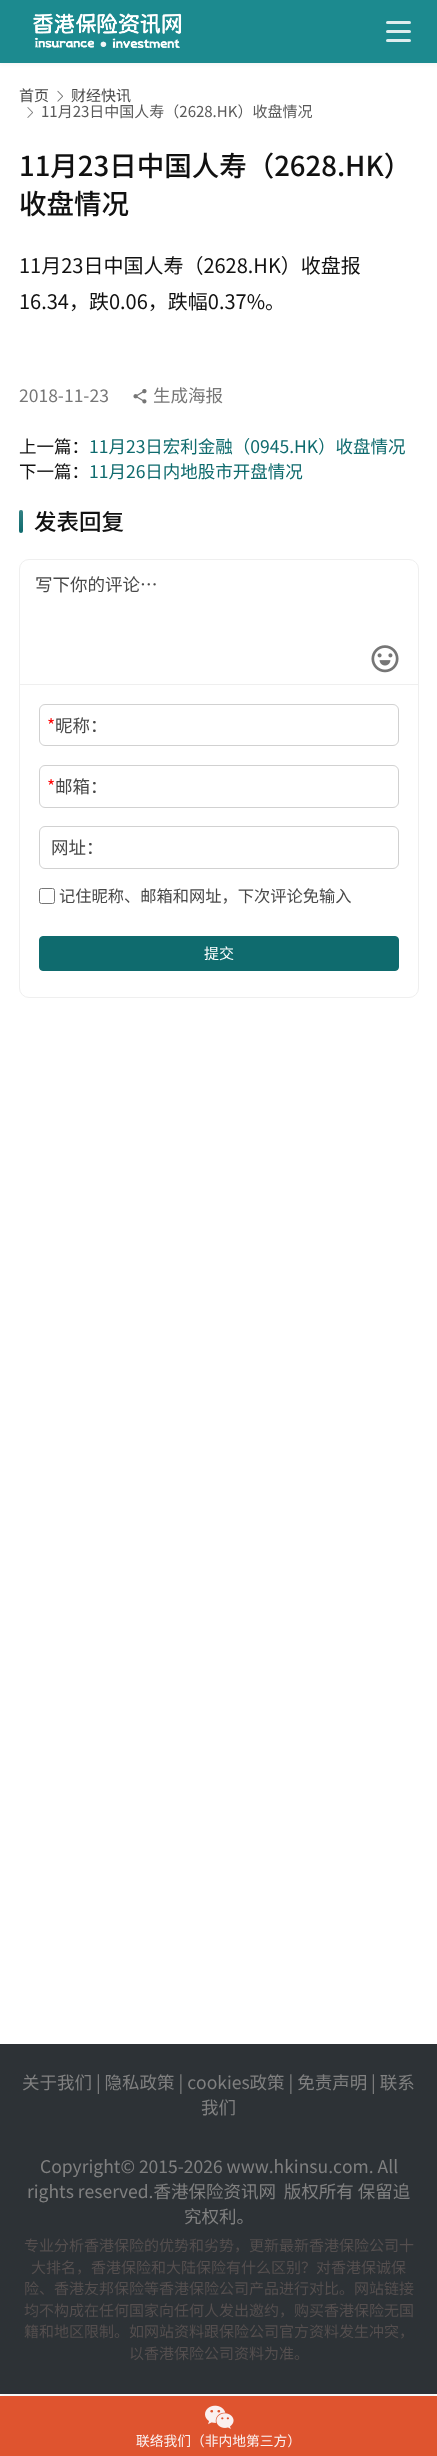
<svg xmlns="http://www.w3.org/2000/svg" width="437" height="2456">
	<style>*{font-kerning:none!important;font-variant-ligatures:none!important}</style>
	<defs>
		<linearGradient id="g1" gradientUnits="userSpaceOnUse" x1="21" y1="510" x2="21" y2="533"><stop offset="0" stop-color="#FFFFFF" stop-opacity="0.15" /><stop offset="1" stop-color="#FFFFFF" stop-opacity="0" /></linearGradient>
	</defs>
	<rect width="100%" height="100%" fill="#FFFFFF" />
	<rect x="-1" y="-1" width="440" height="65" fill="#1A1A1A" fill-opacity="0.06" filter="blur(2px)" />
	<rect x="0" y="0" width="437" height="63" fill="#1C8A8F" />
	<image x="33" y="13" width="149" height="35" href="assets/img1.png" />
	<rect x="386" y="21" width="25" height="3" rx="1.5" fill="#DDEDEE" />
	<rect x="386" y="30" width="25" height="3" rx="1.5" fill="#DDEDEE" />
	<rect x="386" y="39" width="25" height="3" rx="1.5" fill="#DDEDEE" />
	<text x="19" y="101" font-family="Noto Sans CJK SC" font-size="15" fill="#484848">首页</text>
	<image x="57" y="90" width="6" height="12" href="assets/img2.png" />
	<text x="71" y="101" font-family="Noto Sans CJK SC" font-size="15" fill="#484848">财经快讯</text>
	<image x="27" y="107" width="6" height="11" href="assets/img3.png" />
	<text x="41" y="117" font-family="Noto Sans CJK SC" font-size="15" fill="#5A5A5A">11月23日中国人寿（2628.HK）收盘情况</text>
	<g font-family="Noto Sans CJK SC" font-size="27.5" font-weight="500" fill="#111111">
		<text x="19" y="176">11月23日中国人寿（2628.HK）</text>
		<text x="19" y="214">收盘情况</text>
	</g>
	<g font-family="Noto Sans CJK SC" font-size="20" fill="#111111">
		<text x="19" y="273">11月23日中国人寿（2628.HK）收盘报</text>
		<text x="19" y="309">16.34，跌0.06，跌幅0.37%。</text>
	</g>
	<text x="19" y="402" font-family="Noto Sans CJK SC" font-size="17.5" fill="#767676">2018-11-23</text>
	<image x="133" y="389" width="14" height="15" href="assets/img4.png" />
	<text x="153" y="402" font-family="Noto Sans CJK SC" font-size="17.5" fill="#767676">生成海报</text>
	<text x="19" y="453" font-family="Noto Sans CJK SC" font-size="17.5" fill="#111111">上一篇：</text>
	<text x="89" y="453" font-family="Noto Sans CJK SC" font-size="17.5" fill="#0F6B6E">11月23日宏利金融（0945.HK）收盘情况</text>
	<text x="19" y="478" font-family="Noto Sans CJK SC" font-size="17.5" fill="#111111">下一篇：</text>
	<text x="89" y="478" font-family="Noto Sans CJK SC" font-size="17.5" fill="#0F6B6E">11月26日内地股市开盘情况</text>
	<rect x="19" y="510" width="4" height="23" rx="2" fill="#0F6B6E" />
	<rect x="19" y="510" width="4" height="23" rx="2" fill="url(#g1)" />
	<text x="34" y="530" font-family="Noto Sans CJK SC" font-size="22.5" font-weight="500" fill="#111111">发表回复</text>
	<rect x="19.5" y="559.5" width="399" height="438" rx="9.5" fill="none" stroke="#EFEFEF" />
	<rect x="20" y="684" width="398" height="1" fill="#EFEFEF" />
	<text x="35" y="591" font-family="Noto Sans CJK SC" font-size="17.5" fill="#484848">写下你的评论…</text>
	<image x="371" y="645" width="28" height="28" href="assets/img5.png" />
	<rect x="39.5" y="704.5" width="359" height="41" rx="5.5" fill="none" stroke="#D1D1D1" />
	<text x="47" y="732" font-family="Noto Sans CJK SC" font-size="17.5" fill="#FF0000">*</text>
	<text x="55" y="732" font-family="Noto Sans CJK SC" font-size="17.5" fill="#484848">昵称：</text>
	<rect x="39.5" y="765.5" width="359" height="42" rx="5.5" fill="none" stroke="#D1D1D1" />
	<text x="47" y="793" font-family="Noto Sans CJK SC" font-size="17.5" fill="#FF0000">*</text>
	<text x="55" y="793" font-family="Noto Sans CJK SC" font-size="17.5" fill="#484848">邮箱：</text>
	<rect x="39.5" y="826.5" width="359" height="42" rx="5.5" fill="none" stroke="#D1D1D1" />
	<text x="51" y="854" font-family="Noto Sans CJK SC" font-size="17.5" fill="#484848">网址：</text>
	<rect x="39.5" y="888.5" width="15" height="15" rx="2" fill="none" stroke="#767676" />
	<text x="59" y="902" font-family="Noto Sans CJK SC" font-size="16.25" fill="#484848">记住昵称、邮箱和网址，下次评论免输入</text>
	<rect x="39.5" y="936.5" width="359" height="34" rx="3.5" fill="#0F6B6E" stroke="#0F6B6E" />
	<text x="204" y="959" font-family="Noto Sans CJK SC" font-size="15" fill="#FFFFFF">提交</text>
	<rect x="0" y="2044" width="437" height="350" fill="#2D3236" />
	<g font-family="Noto Sans CJK SC" font-size="17.5" fill="#808080">
		<text x="22" y="2089">关于我们 | 隐私政策 | cookies政策 | 免责声明 | 联系</text>
		<text x="201" y="2114">我们</text>
		<text x="40" y="2173">Copyright© 2015-2026 www.hkinsu.com. All</text>
		<text x="27" y="2198" xml:space="preserve">rights reserved.香港保险资讯网  版权所有 保留追</text>
		<text x="184" y="2223">究权利。</text>
	</g>
	<g font-family="Noto Sans CJK SC" font-size="15" fill="#544E4E">
		<text x="24" y="2251">专业分析香港保险的优势和劣势，更新最新香港保险公司十</text>
		<text x="31" y="2273">大排名，香港保险和大陆保险有什么区别？对香港保诚保</text>
		<text x="24" y="2294">险、香港友邦保险等香港保险公司产品进行对比。网站链接</text>
		<text x="24" y="2316">均不构成在任何国家向任何人发出邀约，购买香港保险无国</text>
		<text x="24" y="2337">籍和地区限制。如网站资料跟保险公司官方资料发生冲突，</text>
		<text x="129" y="2359">以香港保险公司资料为准。</text>
	</g>
	<rect x="0" y="2394" width="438" height="60" fill="#1A1A1A" fill-opacity="0.06" filter="blur(2px)" />
	<rect x="0" y="2396" width="437" height="60" fill="#DF542F" />
	<image x="205" y="2405" width="29" height="24" href="assets/img6.png" />
	<text x="136" y="2446" font-family="Noto Sans CJK SC" font-size="13.75" fill="#FAF0F0">联络我们（非内地第三方）</text>
</svg>
